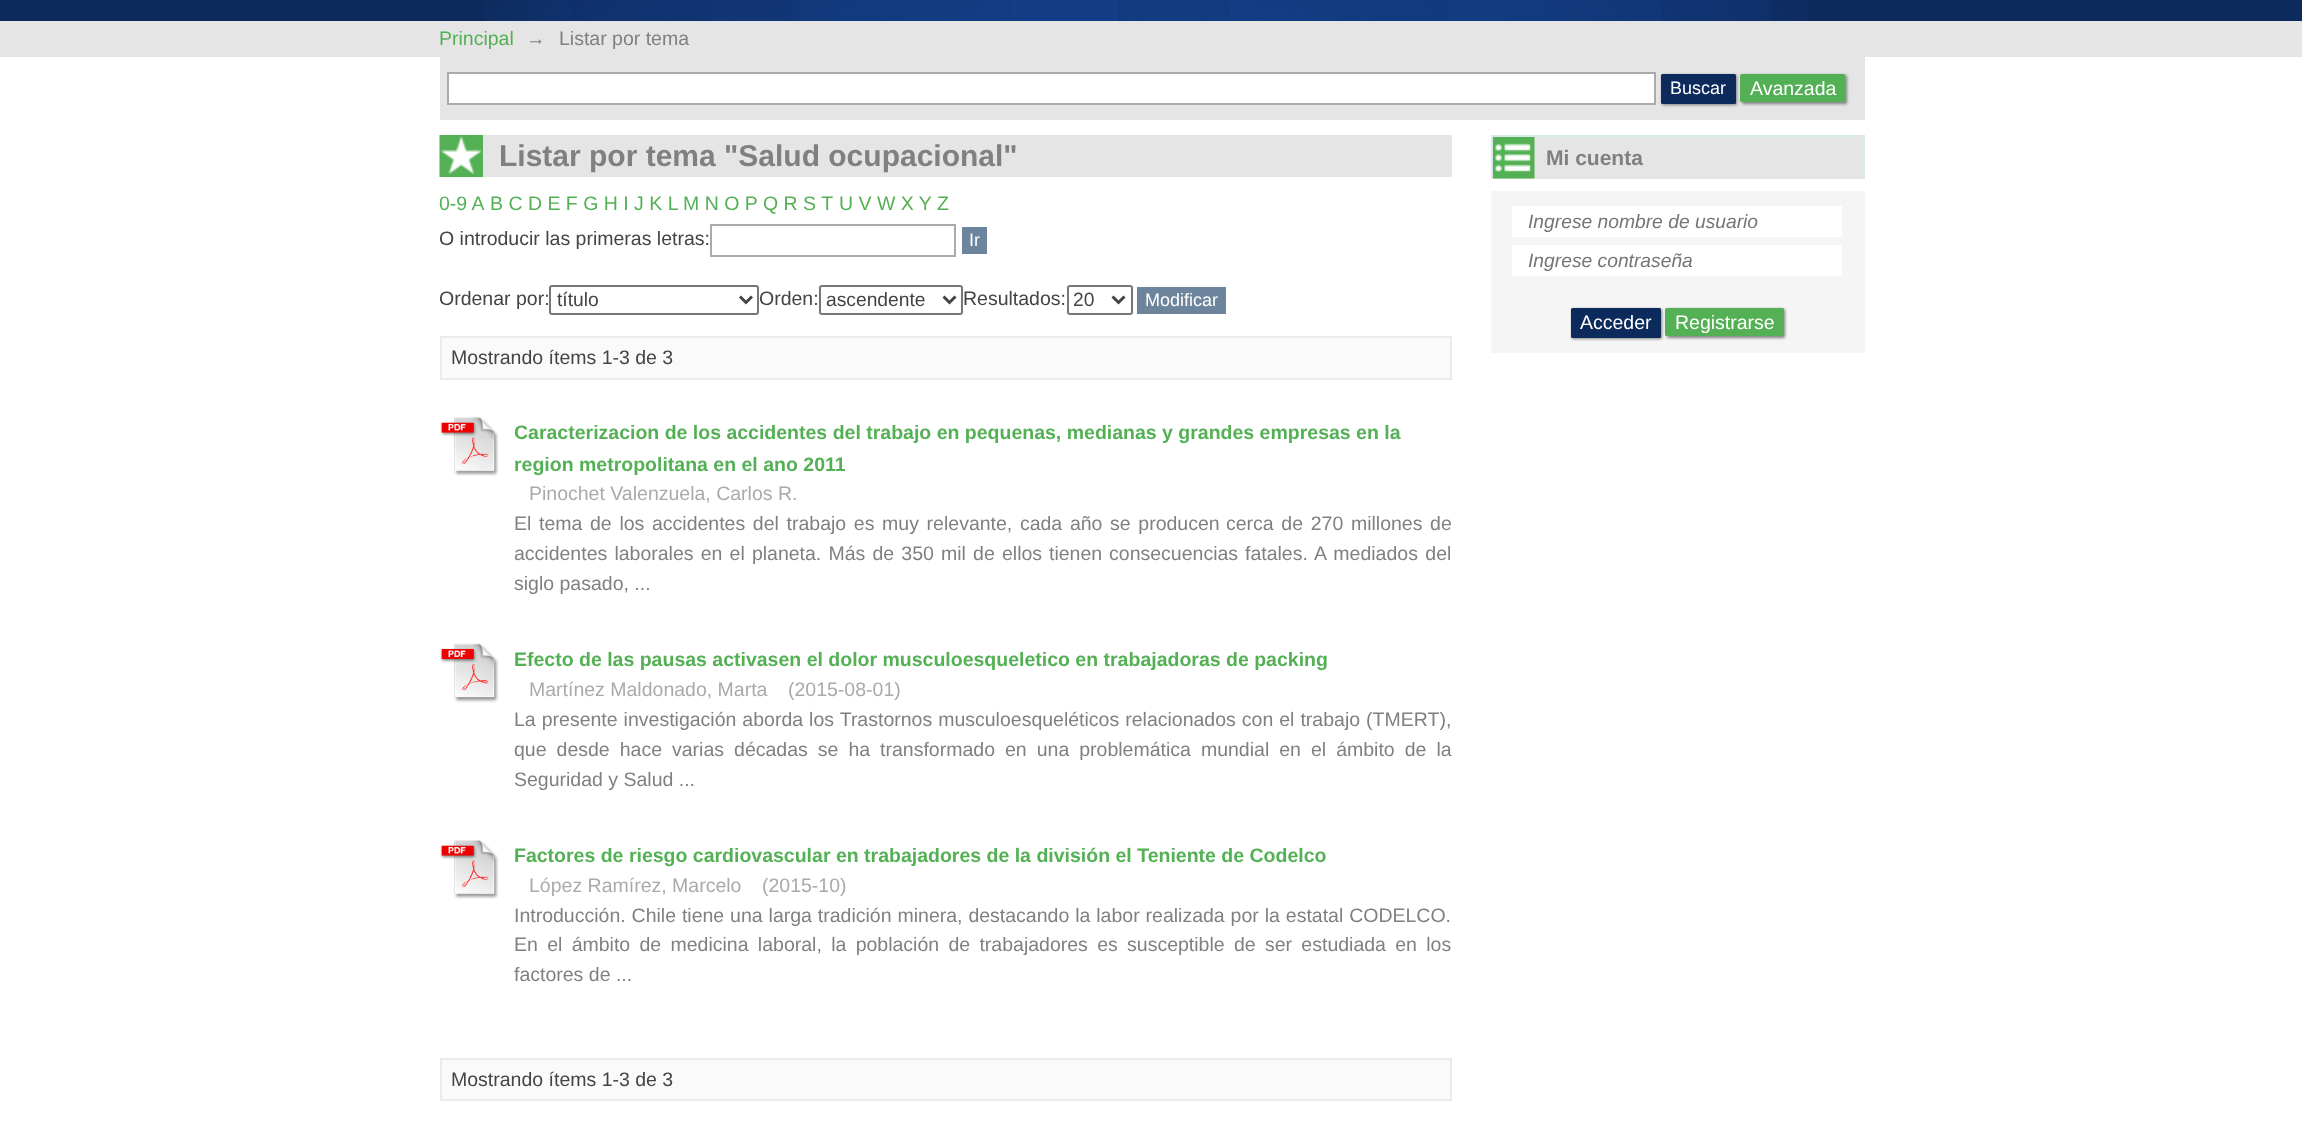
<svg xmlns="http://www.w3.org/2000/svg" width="2302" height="1123">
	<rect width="100%" height="100%" fill="#FFFFFF" />
	<rect x="0" y="0" width="2302" height="21" fill="#0D2A5C" />
	<image x="484" y="0" width="1324" height="21" href="assets/img1.png" />
	<rect x="0" y="21" width="2302" height="36" fill="#E5E5E5" />
	<text x="439" y="45" font-family="Liberation Sans" font-size="19.5" fill="#54B054">Principal</text>
	<g font-family="Liberation Sans" font-size="19.5" fill="#808080">
		<text x="526" y="45">→</text>
		<text x="559" y="45">Listar por tema</text>
	</g>
	<rect x="440" y="57" width="1425" height="63" fill="#E5E5E5" />
	<rect x="448" y="73" width="1207" height="31" fill="#FFFFFF" stroke="#AAAAAA" stroke-width="2" />
	<rect x="1742" y="75" width="105" height="29" rx="1.5" fill="#808080" filter="blur(1.5px)" />
	<rect x="1740" y="74" width="105" height="28" rx="1.5" fill="#54B054" />
	<rect x="1662" y="75" width="75" height="30" rx="1.5" fill="#808080" filter="blur(1.5px)" />
	<rect x="1661" y="74" width="75" height="30" rx="1.5" fill="#0D2A5C" />
	<text x="1670" y="94" font-family="Liberation Sans" font-size="18" fill="#FFFFFF">Buscar</text>
	<text x="1750" y="95" font-family="Liberation Sans" font-size="19.5" fill="#FFFFFF">Avanzada</text>
	<rect x="483" y="135" width="969" height="42" fill="#E5E5E5" />
	<image x="439" y="135" width="44" height="42" href="assets/img2.png" />
	<text x="499" y="166" font-family="Liberation Sans" font-size="30" font-weight="700" fill="#808080">Listar por tema "Salud ocupacional"</text>
	<g font-family="Liberation Sans" font-size="19.5" fill="#54B054">
		<text x="439" y="210">0-9 A</text>
		<text x="490" y="210">B C D E F G H I J K L</text>
		<text x="683" y="210">M N O P</text>
		<text x="763" y="210">Q R S T</text>
		<text x="839" y="210">U V W X Y</text>
		<text x="937" y="210">Z</text>
	</g>
	<text x="439" y="245" font-family="Liberation Sans" font-size="19.5" fill="#444444">O introducir las primeras letras:</text>
	<rect x="711" y="225" width="244" height="31" fill="none" stroke="#AAAAAA" stroke-width="2" />
	<rect x="962" y="227" width="25" height="27" fill="#6D859C" />
	<text x="969" y="246" font-family="Liberation Sans" font-size="18" fill="#FFFFFF">Ir</text>
	<text x="439" y="305" font-family="Liberation Sans" font-size="19.5" fill="#444444">Ordenar por:</text>
	<rect x="550" y="286" width="208" height="28" rx="2" fill="none" stroke="#767676" stroke-width="2" />
	<path d="M740 296.5L746 302.5L752 296.5" fill="none" stroke="#444444" stroke-width="3" />
	<text x="557" y="306" font-family="Liberation Sans" font-size="19.25" fill="#444444">título</text>
	<text x="759" y="305" font-family="Liberation Sans" font-size="19.5" fill="#444444">Orden:</text>
	<rect x="820" y="286" width="142" height="28" rx="2" fill="none" stroke="#767676" stroke-width="2" />
	<path d="M943.5 296.5L949.5 302.5L955.5 296.5" fill="none" stroke="#444444" stroke-width="3" />
	<text x="826" y="306" font-family="Liberation Sans" font-size="19.25" fill="#444444">ascendente</text>
	<text x="963" y="305" font-family="Liberation Sans" font-size="19.5" fill="#444444">Resultados:</text>
	<rect x="1068" y="286" width="64" height="28" rx="2" fill="none" stroke="#767676" stroke-width="2" />
	<path d="M1112.5 296.5L1118.5 302.5L1124.5 296.5" fill="none" stroke="#444444" stroke-width="3" />
	<text x="1073" y="306" font-family="Liberation Sans" font-size="19.25" fill="#444444">20</text>
	<rect x="1137" y="287" width="89" height="27" fill="#6D859C" />
	<text x="1145" y="306" font-family="Liberation Sans" font-size="18" fill="#FFFFFF">Modificar</text>
	<rect x="441" y="337" width="1010" height="42" fill="#FAFAFA" stroke="#EBEBEB" stroke-width="2" />
	<text x="451" y="364" font-family="Liberation Sans" font-size="19.5" fill="#444444">Mostrando ítems 1-3 de 3</text>
	<image x="440" y="417" width="59" height="59" href="assets/img3.png" />
	<g font-family="Liberation Sans" font-size="19.5" font-weight="700" fill="#54B054">
		<text x="514" y="439">Caracterizacion de los accidentes del trabajo en pequenas, medianas y grandes empresas en la</text>
		<text x="514" y="471">region metropolitana en el ano 2011</text>
	</g>
	<text x="529" y="500" font-family="Liberation Sans" font-size="19.5" fill="#AAAAAA">Pinochet Valenzuela, Carlos R.</text>
	<g font-family="Liberation Sans" font-size="19.5" fill="#808080">
		<text x="514" y="530" word-spacing="2.25">El tema de los accidentes del trabajo es muy relevante, cada año se producen</text>
		<text x="1226" y="530" word-spacing="2.25">cerca de 270 millones de</text>
		<text x="514" y="560" word-spacing="1.75">accidentes laborales en el planeta. Más de 350 mil de</text>
		<text x="1002" y="560" word-spacing="1.5">ellos tienen consecuencias fatales.</text>
		<text x="1314" y="560" word-spacing="2">A mediados del</text>
		<text x="514" y="590">siglo pasado, ...</text>
	</g>
	<image x="440" y="643" width="59" height="60" href="assets/img4.png" />
	<text x="514" y="666" font-family="Liberation Sans" font-size="19.5" font-weight="700" fill="#54B054">Efecto de las pausas activasen el dolor musculoesqueletico en trabajadoras de packing</text>
	<g font-family="Liberation Sans" font-size="19.5" fill="#AAAAAA">
		<text x="529" y="696">Martínez Maldonado, Marta</text>
		<text x="788" y="696">(2015-08-01)</text>
	</g>
	<g font-family="Liberation Sans" font-size="19.5" fill="#808080">
		<text x="514" y="726" word-spacing="0.6">La presente investigación aborda los Trastornos musculoesqueléticos relacionados con el trabajo (TMERT),</text>
		<text x="514" y="756" word-spacing="4.6">que desde hace varias décadas se ha transformado en una problemática mundial en el ámbito de la</text>
		<text x="514" y="786">Seguridad y Salud ...</text>
	</g>
	<image x="440" y="840" width="59" height="59" href="assets/img5.png" />
	<text x="514" y="862" font-family="Liberation Sans" font-size="19.5" font-weight="700" fill="#54B054">Factores de riesgo cardiovascular en trabajadores de la división el Teniente de Codelco</text>
	<g font-family="Liberation Sans" font-size="19.5" fill="#AAAAAA">
		<text x="529" y="892">López Ramírez, Marcelo</text>
		<text x="762" y="892">(2015-10)</text>
	</g>
	<g font-family="Liberation Sans" font-size="19.5" fill="#808080">
		<text x="514" y="922" word-spacing="0.5">Introducción. Chile tiene una larga tradición minera, destacando la labor realizada por la estatal CODELCO.</text>
		<text x="514" y="951" word-spacing="3.9">En el ámbito de medicina laboral, la población de trabajadores es susceptible de ser estudiada en los</text>
		<text x="514" y="981">factores de ...</text>
	</g>
	<rect x="441" y="1059" width="1010" height="41" fill="#FAFAFA" stroke="#EBEBEB" stroke-width="2" />
	<text x="451" y="1086" font-family="Liberation Sans" font-size="19.5" fill="#444444">Mostrando ítems 1-3 de 3</text>
	<rect x="1493" y="137" width="370" height="42" fill="#E5E5E5" />
	<image x="1493" y="137" width="42" height="42" href="assets/img6.png" />
	<rect x="1491" y="135" width="374" height="2" fill="#D8E8EB" />
	<rect x="1863" y="135" width="2" height="44" fill="#D8E8EB" />
	<rect x="1491" y="135" width="2" height="44" fill="#D8E8EB" />
	<text x="1546" y="165" font-family="Liberation Sans" font-size="21" font-weight="700" fill="#808080">Mi cuenta</text>
	<rect x="1491" y="191" width="374" height="162" fill="#F5F5F5" />
	<rect x="1512" y="206" width="330" height="31" fill="#FFFFFF" />
	<text x="1528" y="228" font-family="Liberation Sans" font-size="19.25" font-style="italic" fill="#757575">Ingrese nombre de usuario</text>
	<rect x="1512" y="245" width="330" height="31" fill="#FFFFFF" />
	<text x="1528" y="267" font-family="Liberation Sans" font-size="19.25" font-style="italic" fill="#757575">Ingrese contraseña</text>
	<rect x="1667" y="309" width="118" height="29" rx="1.5" fill="#808080" filter="blur(1.5px)" />
	<rect x="1665" y="308" width="119" height="28" rx="1.5" fill="#54B054" />
	<rect x="1572" y="309" width="90" height="30" rx="1.5" fill="#808080" filter="blur(1.5px)" />
	<rect x="1571" y="308" width="90" height="30" rx="1.5" fill="#0D2A5C" />
	<g font-family="Liberation Sans" font-size="19.5" fill="#FFFFFF">
		<text x="1580" y="329">Acceder</text>
		<text x="1675" y="329">Registrarse</text>
	</g>
</svg>
